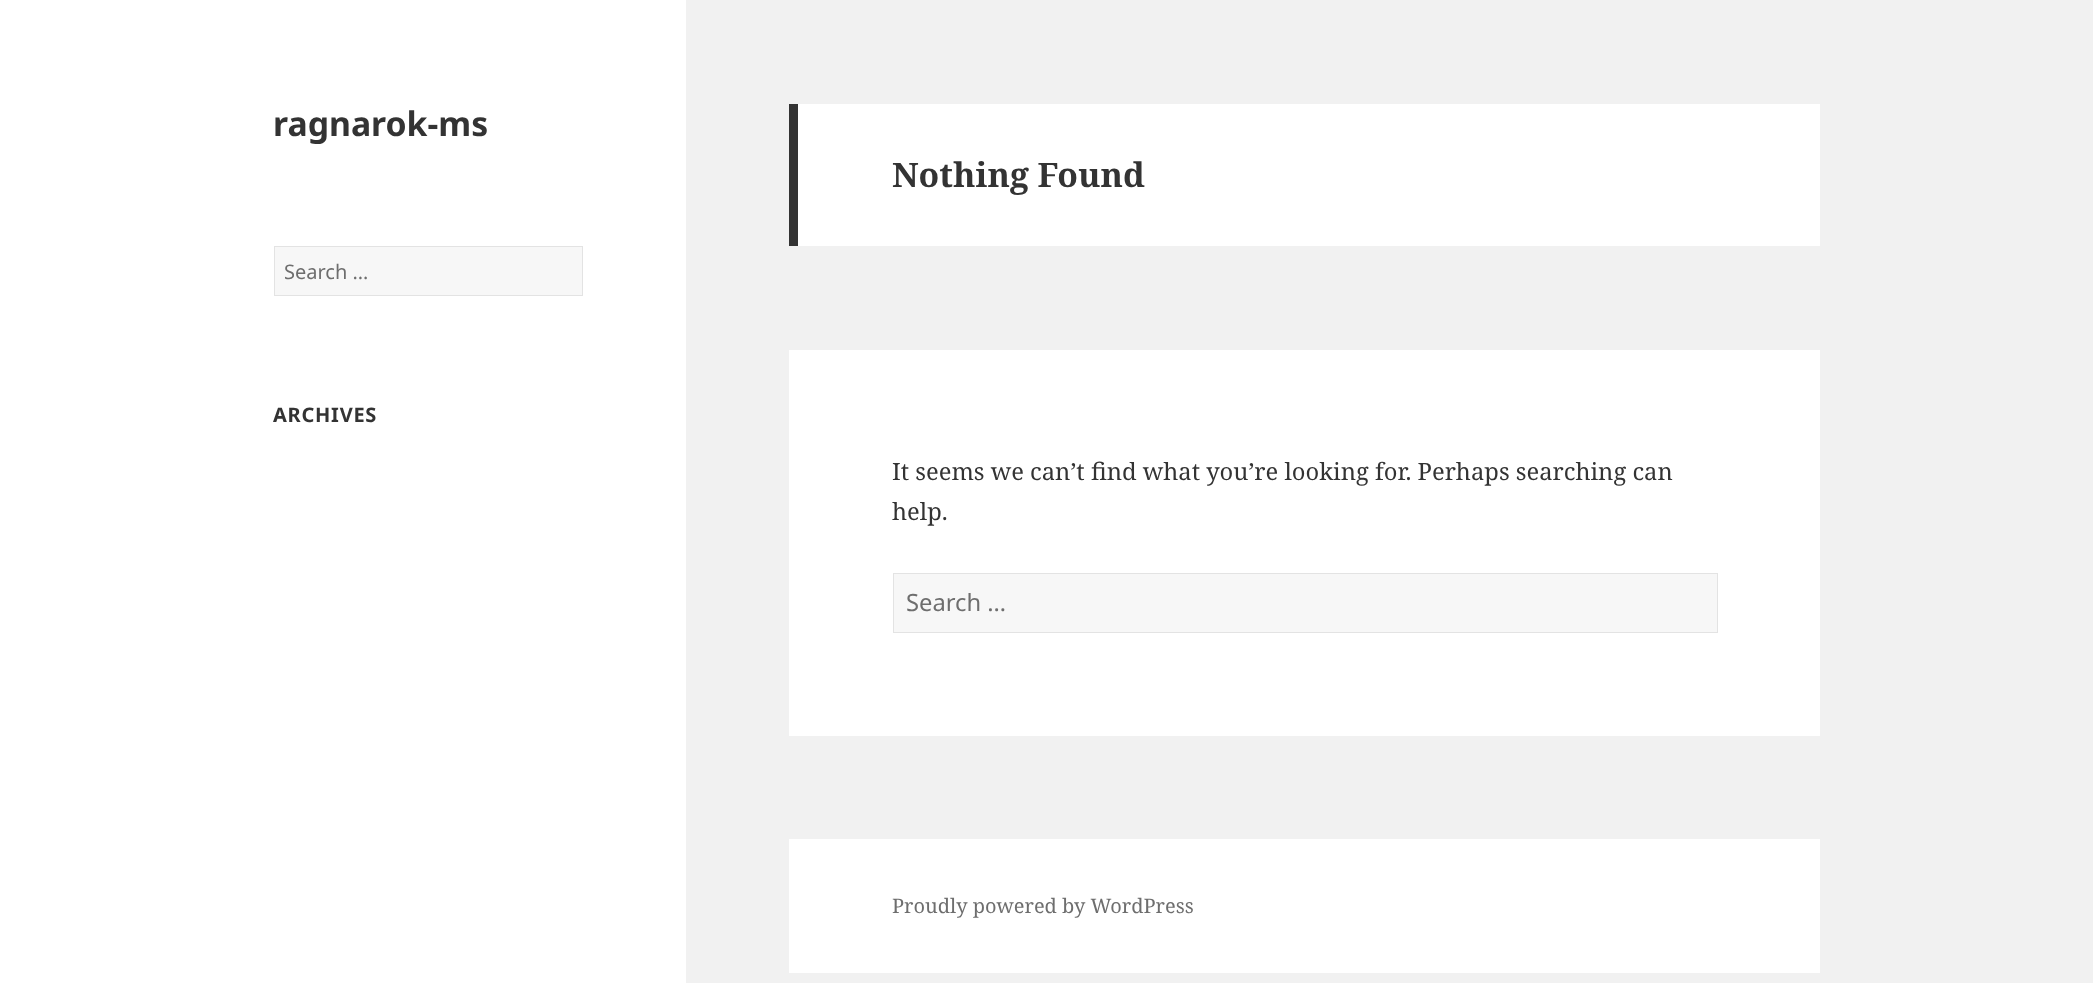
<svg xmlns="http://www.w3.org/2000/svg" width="2093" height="983">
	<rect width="100%" height="100%" fill="#F1F1F1" />
	<rect x="0" y="0" width="686" height="983" fill="#FFFFFF" />
	<text x="273" y="136" font-family="Noto Sans" font-size="33.75" font-weight="700" fill="#333333">ragnarok-ms</text>
	<rect x="274.5" y="246.5" width="308" height="49" fill="#F7F7F7" stroke="#E3E3E3" />
	<text x="284" y="279" font-family="Noto Sans" font-size="20" fill="#6E6E6E">Search …</text>
	<text x="273" y="422" font-family="Noto Sans" font-size="20" font-weight="700" letter-spacing="0.75" fill="#333333">ARCHIVES</text>
	<rect x="798" y="104" width="1022" height="142" fill="#FFFFFF" />
	<rect x="789" y="104" width="9" height="142" fill="#333333" />
	<text x="892" y="187" font-family="Noto Serif" font-size="33.75" font-weight="700" fill="#333333">Nothing Found</text>
	<rect x="789" y="350" width="1031" height="386" fill="#FFFFFF" />
	<g font-family="Noto Serif" font-size="23.75" fill="#333333">
		<text x="892" y="480">It seems we can’t find what you’re looking for. Perhaps searching can</text>
		<text x="892" y="520">help.</text>
	</g>
	<rect x="893.5" y="573.5" width="824" height="59" fill="#F7F7F7" stroke="#E3E3E3" />
	<text x="906" y="611" font-family="Noto Sans" font-size="23.75" fill="#6E6E6E">Search …</text>
	<rect x="789" y="839" width="1031" height="134" fill="#FFFFFF" />
	<text x="892" y="913" font-family="Noto Serif" font-size="20" fill="#6E6E6E">Proudly powered by WordPress</text>
</svg>
